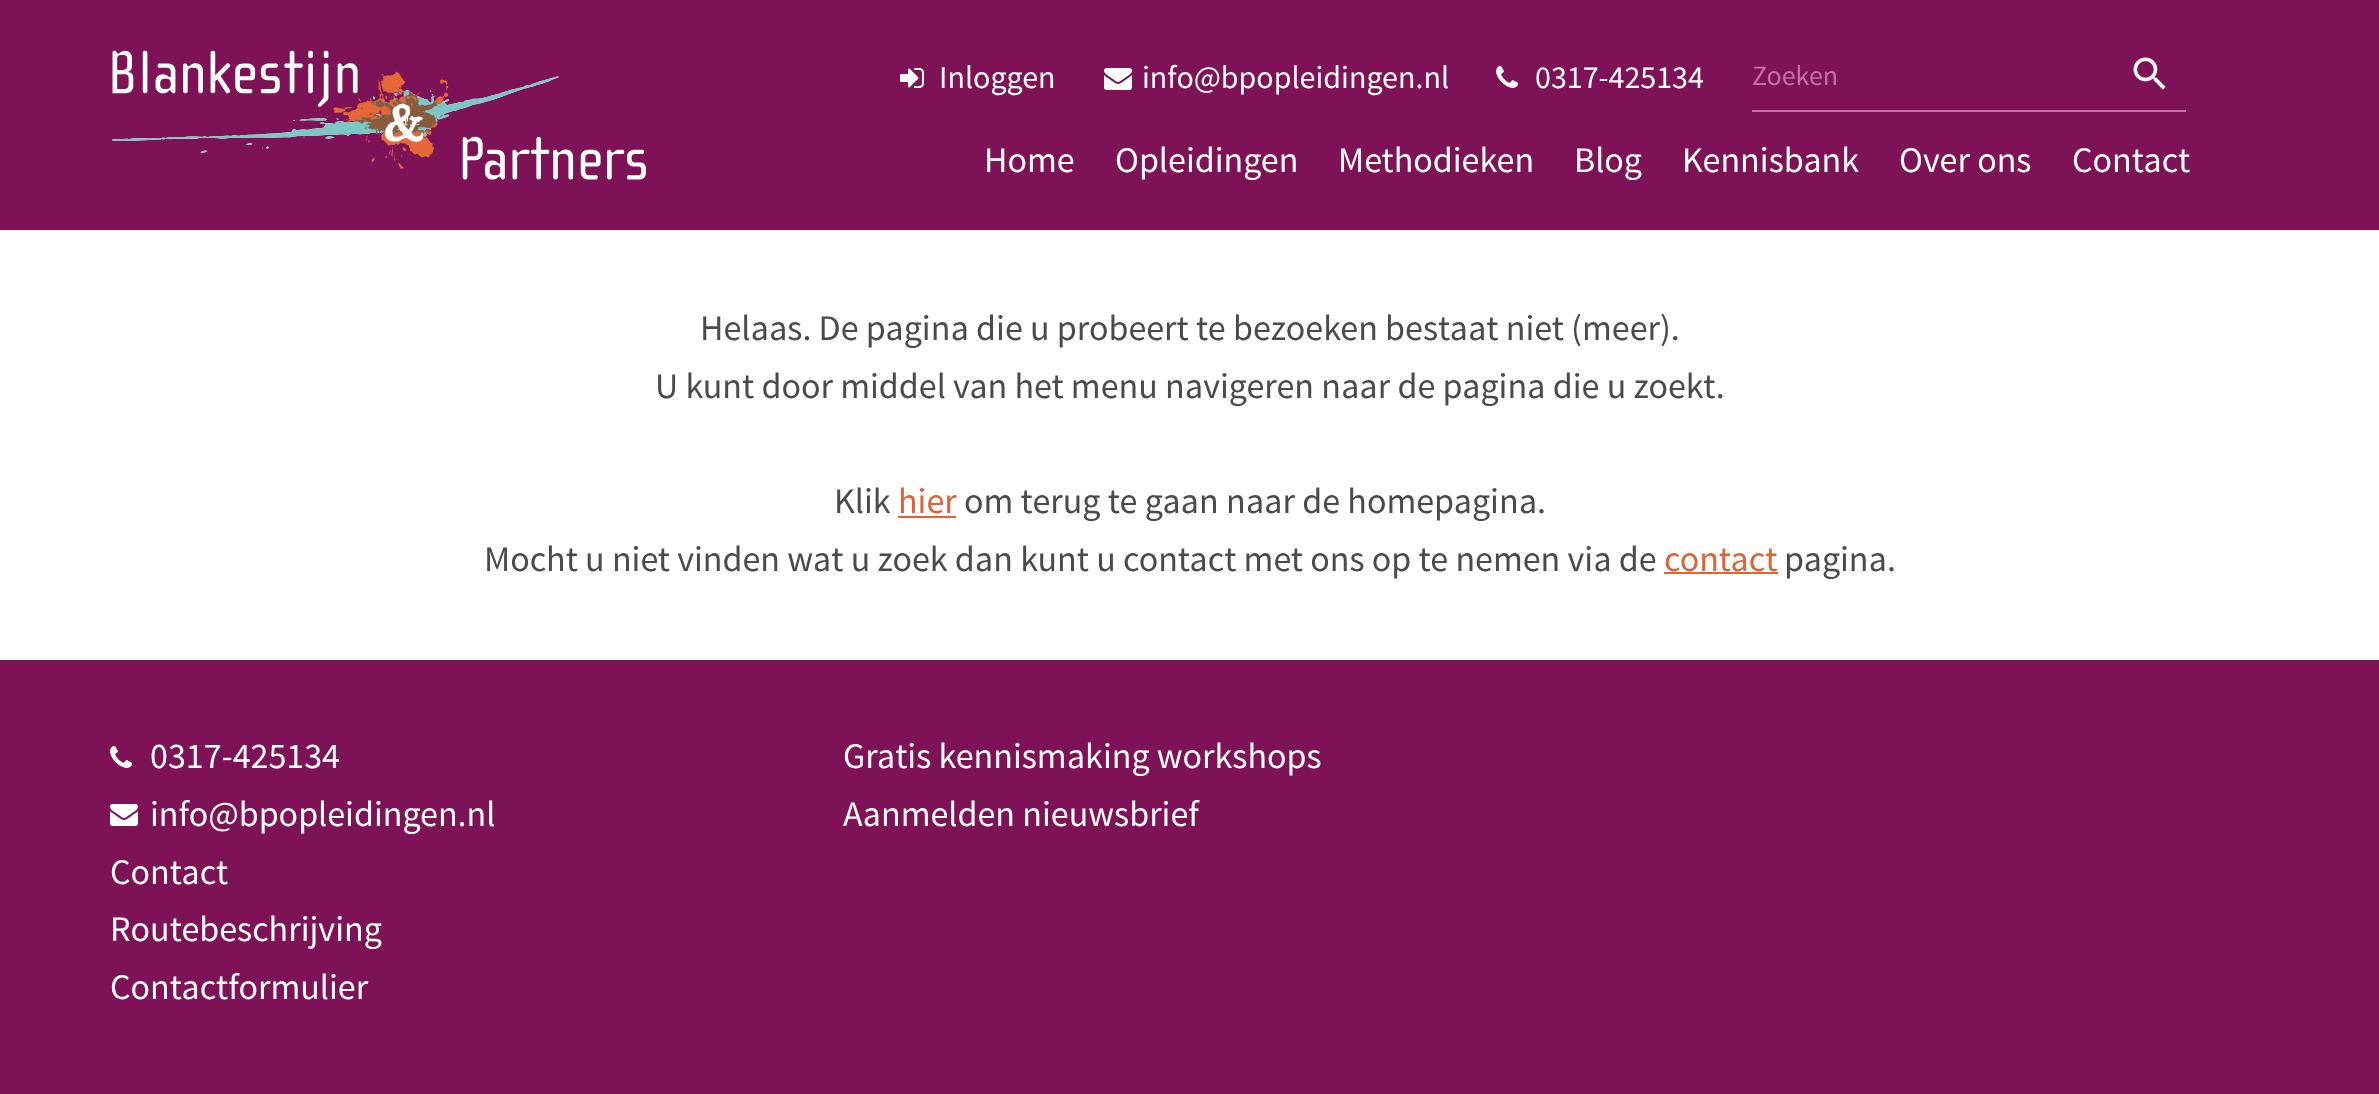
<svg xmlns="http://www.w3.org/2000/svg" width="2379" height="1094">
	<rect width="100%" height="100%" fill="#FFFFFF" />
	<rect x="0" y="0" width="2379" height="230" fill="#7E1257" />
	<image x="111" y="50" width="535" height="130" href="assets/img1.png" />
	<image x="900" y="68" width="24" height="20" href="assets/img2.png" />
	<text x="939" y="88" font-family="Source Sans Pro" font-size="32" fill="#FFFFFF">Inloggen</text>
	<image x="1104" y="68" width="28" height="22" href="assets/img3.png" />
	<text x="1142" y="88" font-family="Source Sans Pro" font-size="32" fill="#FFFFFF">info@bpopleidingen.nl</text>
	<image x="1496" y="66" width="22" height="22" href="assets/img4.png" />
	<text x="1535" y="88" font-family="Source Sans Pro" font-size="32" fill="#FFFFFF">0317-425134</text>
	<rect x="1752" y="110" width="434" height="2" fill="#C86CA7" />
	<image x="2133" y="57" width="33" height="33" href="assets/img5.png" />
	<text x="1752" y="85" font-family="Source Sans Pro" font-size="28" fill="#C86CA7">Zoeken</text>
	<g font-family="Source Sans Pro" font-size="36" fill="#FFFFFF">
		<text x="984" y="172">Home</text>
		<text x="1115" y="172">Opleidingen</text>
		<text x="1338" y="172">Methodieken</text>
		<text x="1574" y="172">Blog</text>
		<text x="1682" y="172">Kennisbank</text>
		<text x="1899" y="172">Over ons</text>
		<text x="2072" y="172">Contact</text>
	</g>
	<g font-family="Source Sans Pro" font-size="36" fill="#4A4A4A">
		<text x="700" y="340">Helaas. De pagina die u probeert te bezoeken bestaat niet (meer).</text>
		<text x="655" y="398">U kunt door middel van het menu navigeren naar de pagina die u zoekt.</text>
		<text x="834" y="513">Klik</text>
	</g>
	<text x="898" y="513" font-family="Source Sans Pro" font-size="36" fill="#DD6238">hier</text>
	<rect x="898" y="516" width="58" height="2" fill="#DD6238" />
	<g font-family="Source Sans Pro" font-size="36" fill="#4A4A4A">
		<text x="964" y="513">om terug te gaan naar de homepagina.</text>
		<text x="484" y="571">Mocht u niet vinden wat u zoek dan kunt u contact met ons op te nemen via de</text>
	</g>
	<text x="1664" y="571" font-family="Source Sans Pro" font-size="36" fill="#DD6238">contact</text>
	<rect x="1664" y="572" width="114" height="2" fill="#DD6238" />
	<text x="1784" y="571" font-family="Source Sans Pro" font-size="36" fill="#4A4A4A">pagina.</text>
	<rect x="0" y="660" width="2379" height="434" fill="#7E1257" />
	<image x="110" y="746" width="22" height="22" href="assets/img4.png" />
	<text x="150" y="768" font-family="Source Sans Pro" font-size="36" fill="#FFFFFF">0317-425134</text>
	<image x="110" y="804" width="28" height="22" href="assets/img3.png" />
	<g font-family="Source Sans Pro" font-size="36" fill="#FFFFFF">
		<text x="150" y="826">info@bpopleidingen.nl</text>
		<text x="110" y="884">Contact</text>
		<text x="110" y="941">Routebeschrijving</text>
		<text x="110" y="999">Contactformulier</text>
		<text x="843" y="768">Gratis kennismaking workshops</text>
		<text x="843" y="826">Aanmelden nieuwsbrief</text>
	</g>
</svg>
